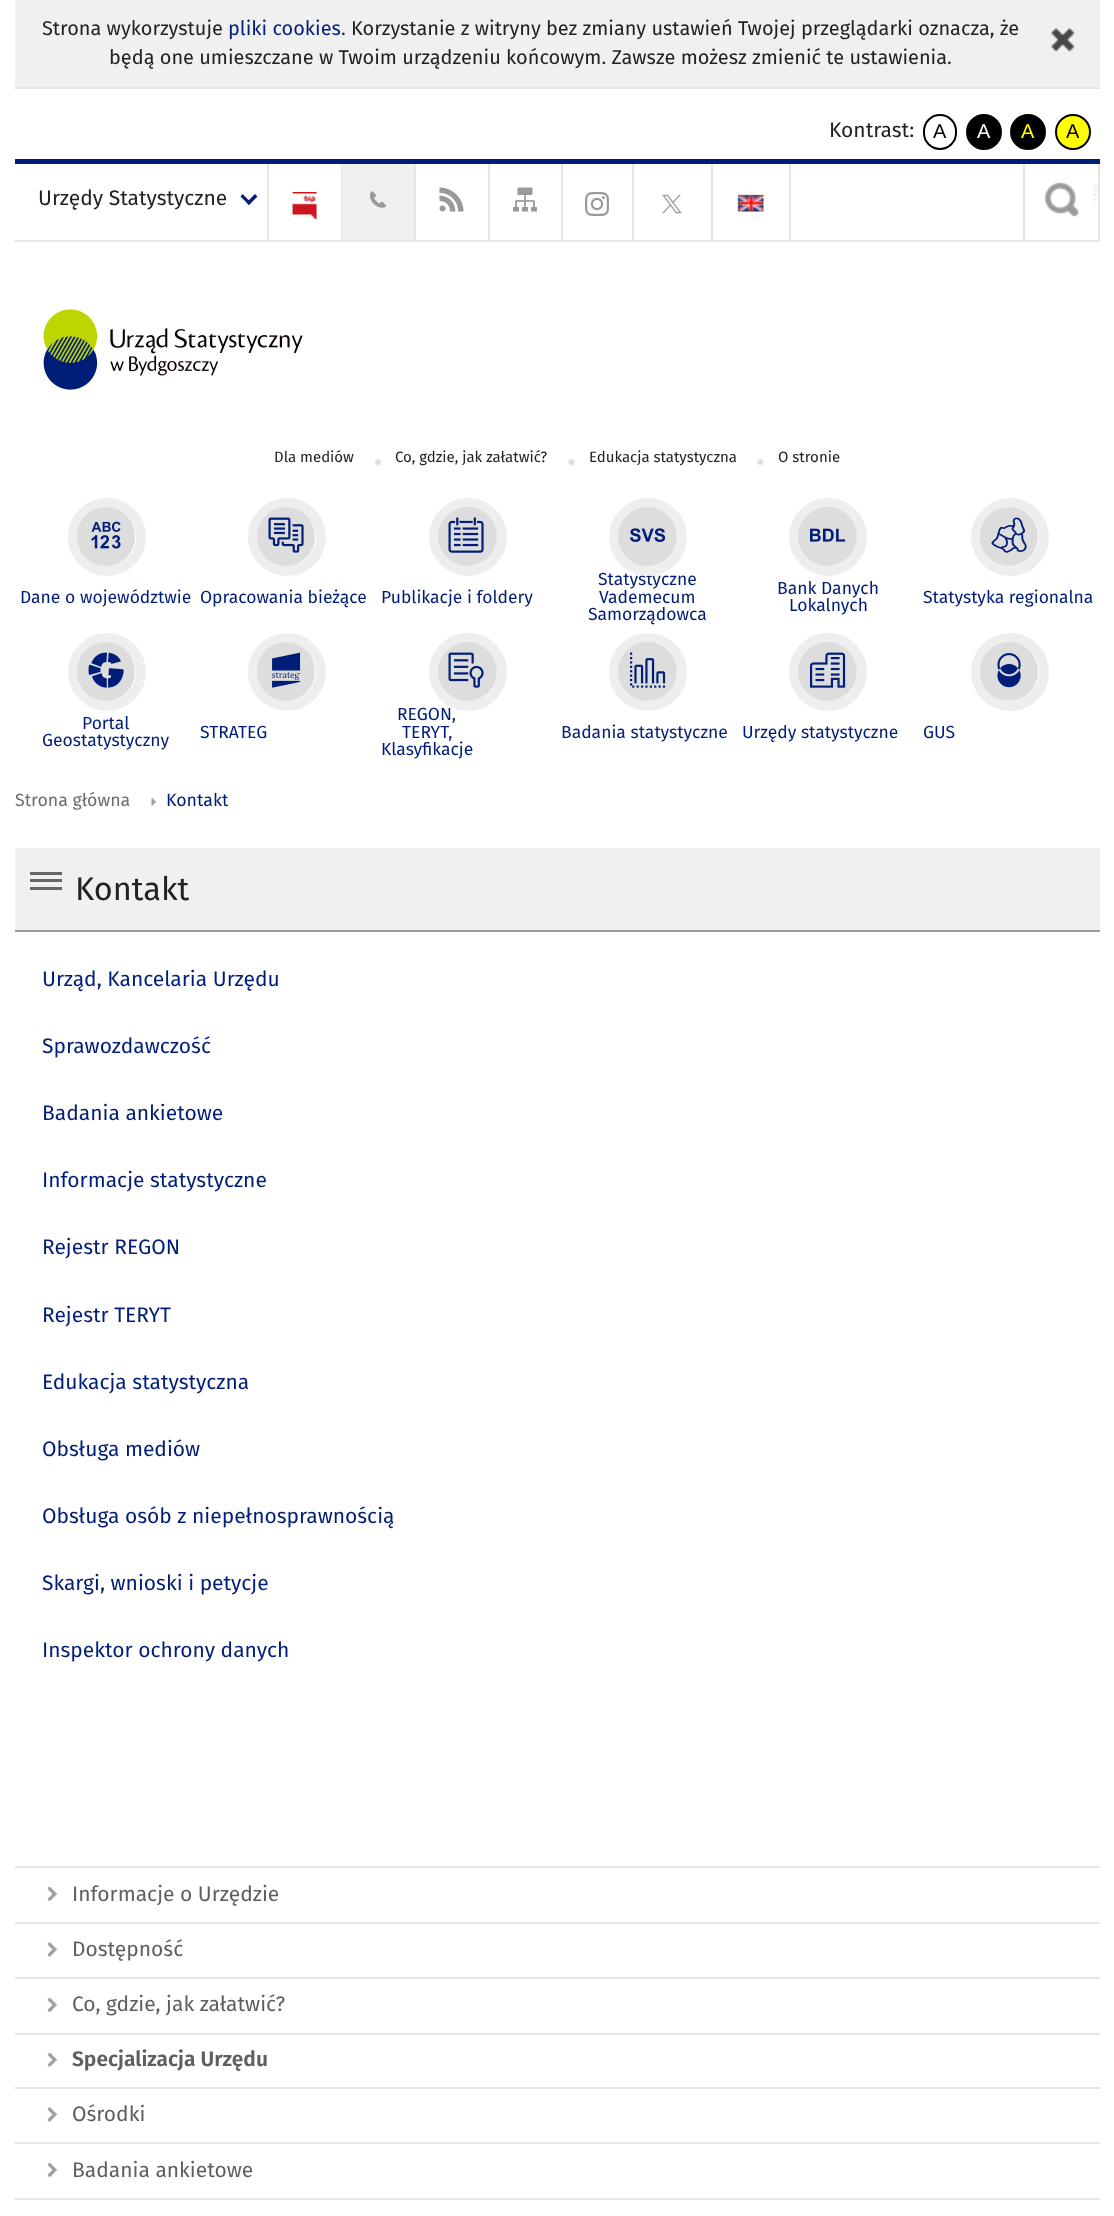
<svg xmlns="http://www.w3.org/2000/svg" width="1114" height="2216">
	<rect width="100%" height="100%" fill="#FFFFFF" />
	<rect x="15" y="0" width="1085" height="87" fill="#F0F0F0" />
	<rect x="15" y="87" width="1085" height="2" fill="#E5E5E5" />
	<text x="42" y="35" font-family="Fira Sans" font-size="19.95" fill="#222222">Strona wykorzystuje</text>
	<text x="228" y="35" font-family="Fira Sans" font-size="19.95" fill="#001D77">pliki cookies</text>
	<text x="341" y="35" font-family="Fira Sans" font-size="19.95" fill="#222222">. Korzystanie z witryny bez zmiany ustawień Twojej przeglądarki oznacza, że</text>
	<image x="1051" y="28" width="24" height="24" href="assets/img1.png" />
	<text x="109" y="64" font-family="Fira Sans" font-size="19.95" fill="#222222">będą one umieszczane w Twoim urządzeniu końcowym. Zawsze możesz zmienić te ustawienia.</text>
	<text x="829" y="137" font-family="Fira Sans" font-size="21" fill="#222222">Kontrast:</text>
	<rect x="924" y="115" width="32" height="34" rx="16" fill="none" stroke="#000000" stroke-width="2" />
	<text x="933" y="138" font-family="Liberation Sans" font-size="19.95" fill="#000000">A</text>
	<circle cx="984" cy="132" r="17" fill="#000000" stroke="#000000" stroke-width="2" />
	<text x="977" y="138" font-family="Liberation Sans" font-size="19.95" fill="#FFFFFF">A</text>
	<circle cx="1028" cy="132" r="17" fill="#000000" stroke="#000000" stroke-width="2" />
	<text x="1021" y="138" font-family="Liberation Sans" font-size="19.95" fill="#FFFF00">A</text>
	<circle cx="1073" cy="132" r="17" fill="#FFFF00" stroke="#000000" stroke-width="2" />
	<text x="1066" y="138" font-family="Liberation Sans" font-size="19.95" fill="#000000">A</text>
	<rect x="15" y="159" width="1085" height="5" fill="#001D77" />
	<rect x="15" y="240" width="1085" height="2" fill="#E5E5E5" />
	<rect x="267" y="164" width="2" height="76" fill="#E5E5E5" />
	<text x="38" y="205" font-family="Fira Sans" font-size="21" fill="#222222">Urzędy Statystyczne</text>
	<path d="M255 194L257.5 196.5L249 205L246.5 202.5Z" fill="#001D77" />
	<path d="M242.5 194L251 202.5L249 205L240.5 196.5Z" fill="#001D77" />
	<rect x="341" y="164" width="1" height="76" fill="#E5E5E5" />
	<image x="292" y="192" width="25" height="27" href="assets/img2.png" />
	<rect x="342" y="164" width="72" height="76" fill="#F0F0F0" />
	<rect x="414" y="164" width="2" height="76" fill="#E5E5E5" />
	<image x="369" y="191" width="17" height="17" href="assets/img3.png" />
	<rect x="488" y="164" width="2" height="76" fill="#E5E5E5" />
	<image x="439" y="187" width="25" height="25" href="assets/img4.png" />
	<rect x="561" y="164" width="2" height="76" fill="#E5E5E5" />
	<image x="513" y="187" width="24" height="25" href="assets/img5.png" />
	<rect x="632" y="164" width="2" height="76" fill="#E5E5E5" />
	<image x="585" y="192" width="24" height="24" href="assets/img6.png" />
	<rect x="711" y="164" width="2" height="76" fill="#E5E5E5" />
	<image x="662" y="194" width="20" height="20" href="assets/img7.png" />
	<rect x="789" y="164" width="2" height="76" fill="#E5E5E5" />
	<image x="737" y="194" width="27" height="18" href="assets/img8.png" />
	<image x="1044" y="182" width="54" height="35" href="assets/img9.png" />
	<rect x="1098" y="164" width="2" height="76" fill="#E5E5E5" />
	<rect x="1023" y="164" width="2" height="76" fill="#E5E5E5" />
	<image x="43" y="309" width="260" height="81" href="assets/img10.png" />
	<text x="274" y="462" font-family="Fira Sans" font-size="15" fill="#222222">Dla mediów</text>
	<image x="375" y="458" width="7" height="8" href="assets/img11.png" />
	<text x="395" y="462" font-family="Fira Sans" font-size="15" fill="#222222">Co, gdzie, jak załatwić?</text>
	<image x="568" y="458" width="7" height="8" href="assets/img12.png" />
	<text x="589" y="462" font-family="Fira Sans" font-size="15" fill="#222222">Edukacja statystyczna</text>
	<image x="757" y="458" width="7" height="8" href="assets/img13.png" />
	<text x="778" y="462" font-family="Fira Sans" font-size="15" fill="#222222">O stronie</text>
	<circle cx="107" cy="537" r="34" fill="none" stroke="#EEEEEE" stroke-width="10" />
	<rect x="77" y="507" width="58" height="59" rx="29" fill="#DDDDDD" />
	<image x="91" y="521" width="30" height="28" href="assets/img14.png" />
	<text x="20" y="603" font-family="Fira Sans" font-size="17.5" fill="#001D77">Dane o województwie</text>
	<circle cx="287" cy="537" r="34" fill="none" stroke="#EEEEEE" stroke-width="10" />
	<rect x="257" y="507" width="58" height="59" rx="29" fill="#DDDDDD" />
	<image x="268" y="517" width="36" height="36" href="assets/img15.png" />
	<text x="200" y="603" font-family="Fira Sans" font-size="17.5" fill="#001D77">Opracowania bieżące</text>
	<circle cx="468" cy="537" r="34" fill="none" stroke="#EEEEEE" stroke-width="10" />
	<circle cx="467.5" cy="536.5" r="29.5" fill="#DDDDDD" />
	<image x="448" y="517" width="36" height="36" href="assets/img16.png" />
	<g font-family="Fira Sans" font-size="17.5" fill="#001D77">
		<text x="381" y="603">Publikacje i foldery</text>
		<text x="598" y="585">Statystyczne</text>
	</g>
	<circle cx="648" cy="537" r="34" fill="none" stroke="#EEEEEE" stroke-width="10" />
	<circle cx="647.5" cy="536.5" r="29.5" fill="#DDDDDD" />
	<image x="630" y="528" width="36" height="14" href="assets/img17.png" />
	<g font-family="Fira Sans" font-size="17.5" fill="#001D77">
		<text x="599" y="603">Vademecum</text>
		<text x="588" y="620">Samorządowca</text>
	</g>
	<circle cx="828" cy="537" r="34" fill="none" stroke="#EEEEEE" stroke-width="10" />
	<circle cx="827.5" cy="536.5" r="29.5" fill="#DDDDDD" />
	<image x="810" y="528" width="36" height="14" href="assets/img18.png" />
	<g font-family="Fira Sans" font-size="17.5" fill="#001D77">
		<text x="777" y="594">Bank Danych</text>
		<text x="789" y="611">Lokalnych</text>
	</g>
	<circle cx="1010" cy="537" r="34" fill="none" stroke="#EEEEEE" stroke-width="10" />
	<rect x="980" y="507" width="58" height="59" rx="29" fill="#DDDDDD" />
	<image x="991" y="517" width="36" height="36" href="assets/img19.png" />
	<text x="923" y="603" font-family="Fira Sans" font-size="17.5" fill="#001D77">Statystyka regionalna</text>
	<circle cx="107" cy="672" r="34" fill="none" stroke="#EEEEEE" stroke-width="10" />
	<rect x="77" y="642" width="58" height="59" rx="29" fill="#DDDDDD" />
	<image x="88" y="652" width="36" height="36" href="assets/img20.png" />
	<g font-family="Fira Sans" font-size="17.5" fill="#001D77">
		<text x="82" y="729">Portal</text>
		<text x="42" y="746">Geostatystyczny</text>
	</g>
	<circle cx="287" cy="672" r="34" fill="none" stroke="#EEEEEE" stroke-width="10" />
	<rect x="257" y="642" width="58" height="59" rx="29" fill="#DDDDDD" />
	<image x="272" y="652" width="29" height="36" href="assets/img21.png" />
	<g font-family="Fira Sans" font-size="17.5" fill="#001D77">
		<text x="200" y="738">STRATEG</text>
		<text x="397" y="720">REGON,</text>
	</g>
	<circle cx="468" cy="672" r="34" fill="none" stroke="#EEEEEE" stroke-width="10" />
	<circle cx="467.5" cy="671.5" r="29.5" fill="#DDDDDD" />
	<image x="448" y="652" width="36" height="36" href="assets/img22.png" />
	<g font-family="Fira Sans" font-size="17.5" fill="#001D77">
		<text x="402" y="738">TERYT,</text>
		<text x="381" y="755">Klasyfikacje</text>
	</g>
	<circle cx="648" cy="672" r="34" fill="none" stroke="#EEEEEE" stroke-width="10" />
	<circle cx="647.5" cy="671.5" r="29.5" fill="#DDDDDD" />
	<image x="630" y="652" width="36" height="36" href="assets/img23.png" />
	<text x="561" y="738" font-family="Fira Sans" font-size="17.5" fill="#001D77">Badania statystyczne</text>
	<circle cx="828" cy="672" r="34" fill="none" stroke="#EEEEEE" stroke-width="10" />
	<circle cx="827.5" cy="671.5" r="29.5" fill="#DDDDDD" />
	<image x="810" y="652" width="36" height="36" href="assets/img24.png" />
	<text x="742" y="738" font-family="Fira Sans" font-size="17.5" fill="#001D77">Urzędy statystyczne</text>
	<circle cx="1010" cy="672" r="34" fill="none" stroke="#EEEEEE" stroke-width="10" />
	<rect x="980" y="642" width="58" height="59" rx="29" fill="#DDDDDD" />
	<image x="997" y="653" width="24" height="35" href="assets/img25.png" />
	<text x="923" y="738" font-family="Fira Sans" font-size="17.5" fill="#001D77">GUS</text>
	<text x="15" y="806" font-family="Fira Sans" font-size="17.75" fill="#6E6E6E">Strona główna</text>
	<image x="151" y="797" width="6" height="9" href="assets/img26.png" />
	<text x="166" y="806" font-family="Fira Sans" font-size="17.75" fill="#001D77">Kontakt</text>
	<rect x="15" y="848" width="1085" height="82" fill="#F0F0F0" />
	<rect x="15" y="930" width="1085" height="2" fill="#9A9A9A" />
	<rect x="30" y="887" width="32" height="3" fill="#666666" />
	<rect x="30" y="879" width="32" height="3" fill="#666666" />
	<rect x="30" y="872" width="32" height="3" fill="#666666" />
	<text x="75" y="900" font-family="Fira Sans" font-size="32.5" fill="#222222">Kontakt</text>
	<g font-family="Fira Sans" font-size="21" fill="#001D77">
		<text x="42" y="986">Urząd, Kancelaria Urzędu</text>
		<text x="42" y="1053">Sprawozdawczość</text>
		<text x="42" y="1120">Badania ankietowe</text>
		<text x="42" y="1187">Informacje statystyczne</text>
		<text x="42" y="1254">Rejestr REGON</text>
		<text x="42" y="1322">Rejestr TERYT</text>
		<text x="42" y="1389">Edukacja statystyczna</text>
		<text x="42" y="1456">Obsługa mediów</text>
		<text x="42" y="1523">Obsługa osób z niepełnosprawnością</text>
		<text x="42" y="1590">Skargi, wnioski i petycje</text>
		<text x="42" y="1657">Inspektor ochrony danych</text>
	</g>
	<image x="47" y="1886" width="11" height="15" href="assets/img27.png" />
	<rect x="15" y="1866" width="1085" height="2" fill="#E5E5E5" />
	<rect x="15" y="1922" width="1085" height="2" fill="#E5E5E5" />
	<text x="72" y="1901" font-family="Fira Sans" font-size="21" fill="#5E5E5E">Informacje o Urzędzie</text>
	<image x="47" y="1942" width="11" height="15" href="assets/img28.png" />
	<rect x="15" y="1977" width="1085" height="2" fill="#E5E5E5" />
	<text x="72" y="1956" font-family="Fira Sans" font-size="21" fill="#5E5E5E">Dostępność</text>
	<image x="47" y="1997" width="11" height="15" href="assets/img27.png" />
	<rect x="15" y="2033" width="1085" height="2" fill="#E5E5E5" />
	<text x="72" y="2011" font-family="Fira Sans" font-size="21" fill="#5E5E5E">Co, gdzie, jak załatwić?</text>
	<image x="47" y="2052" width="11" height="15" href="assets/img29.png" />
	<rect x="15" y="2087" width="1085" height="2" fill="#E5E5E5" />
	<text x="72" y="2066" font-family="Fira Sans" font-size="21" font-weight="600" fill="#5E5E5E">Specjalizacja Urzędu</text>
	<image x="47" y="2107" width="11" height="15" href="assets/img28.png" />
	<rect x="15" y="2142" width="1085" height="2" fill="#E5E5E5" />
	<text x="72" y="2121" font-family="Fira Sans" font-size="21" fill="#5E5E5E">Ośrodki</text>
	<image x="47" y="2162" width="11" height="15" href="assets/img27.png" />
	<rect x="15" y="2198" width="1085" height="2" fill="#E5E5E5" />
	<text x="72" y="2177" font-family="Fira Sans" font-size="21" fill="#5E5E5E">Badania ankietowe</text>
</svg>
